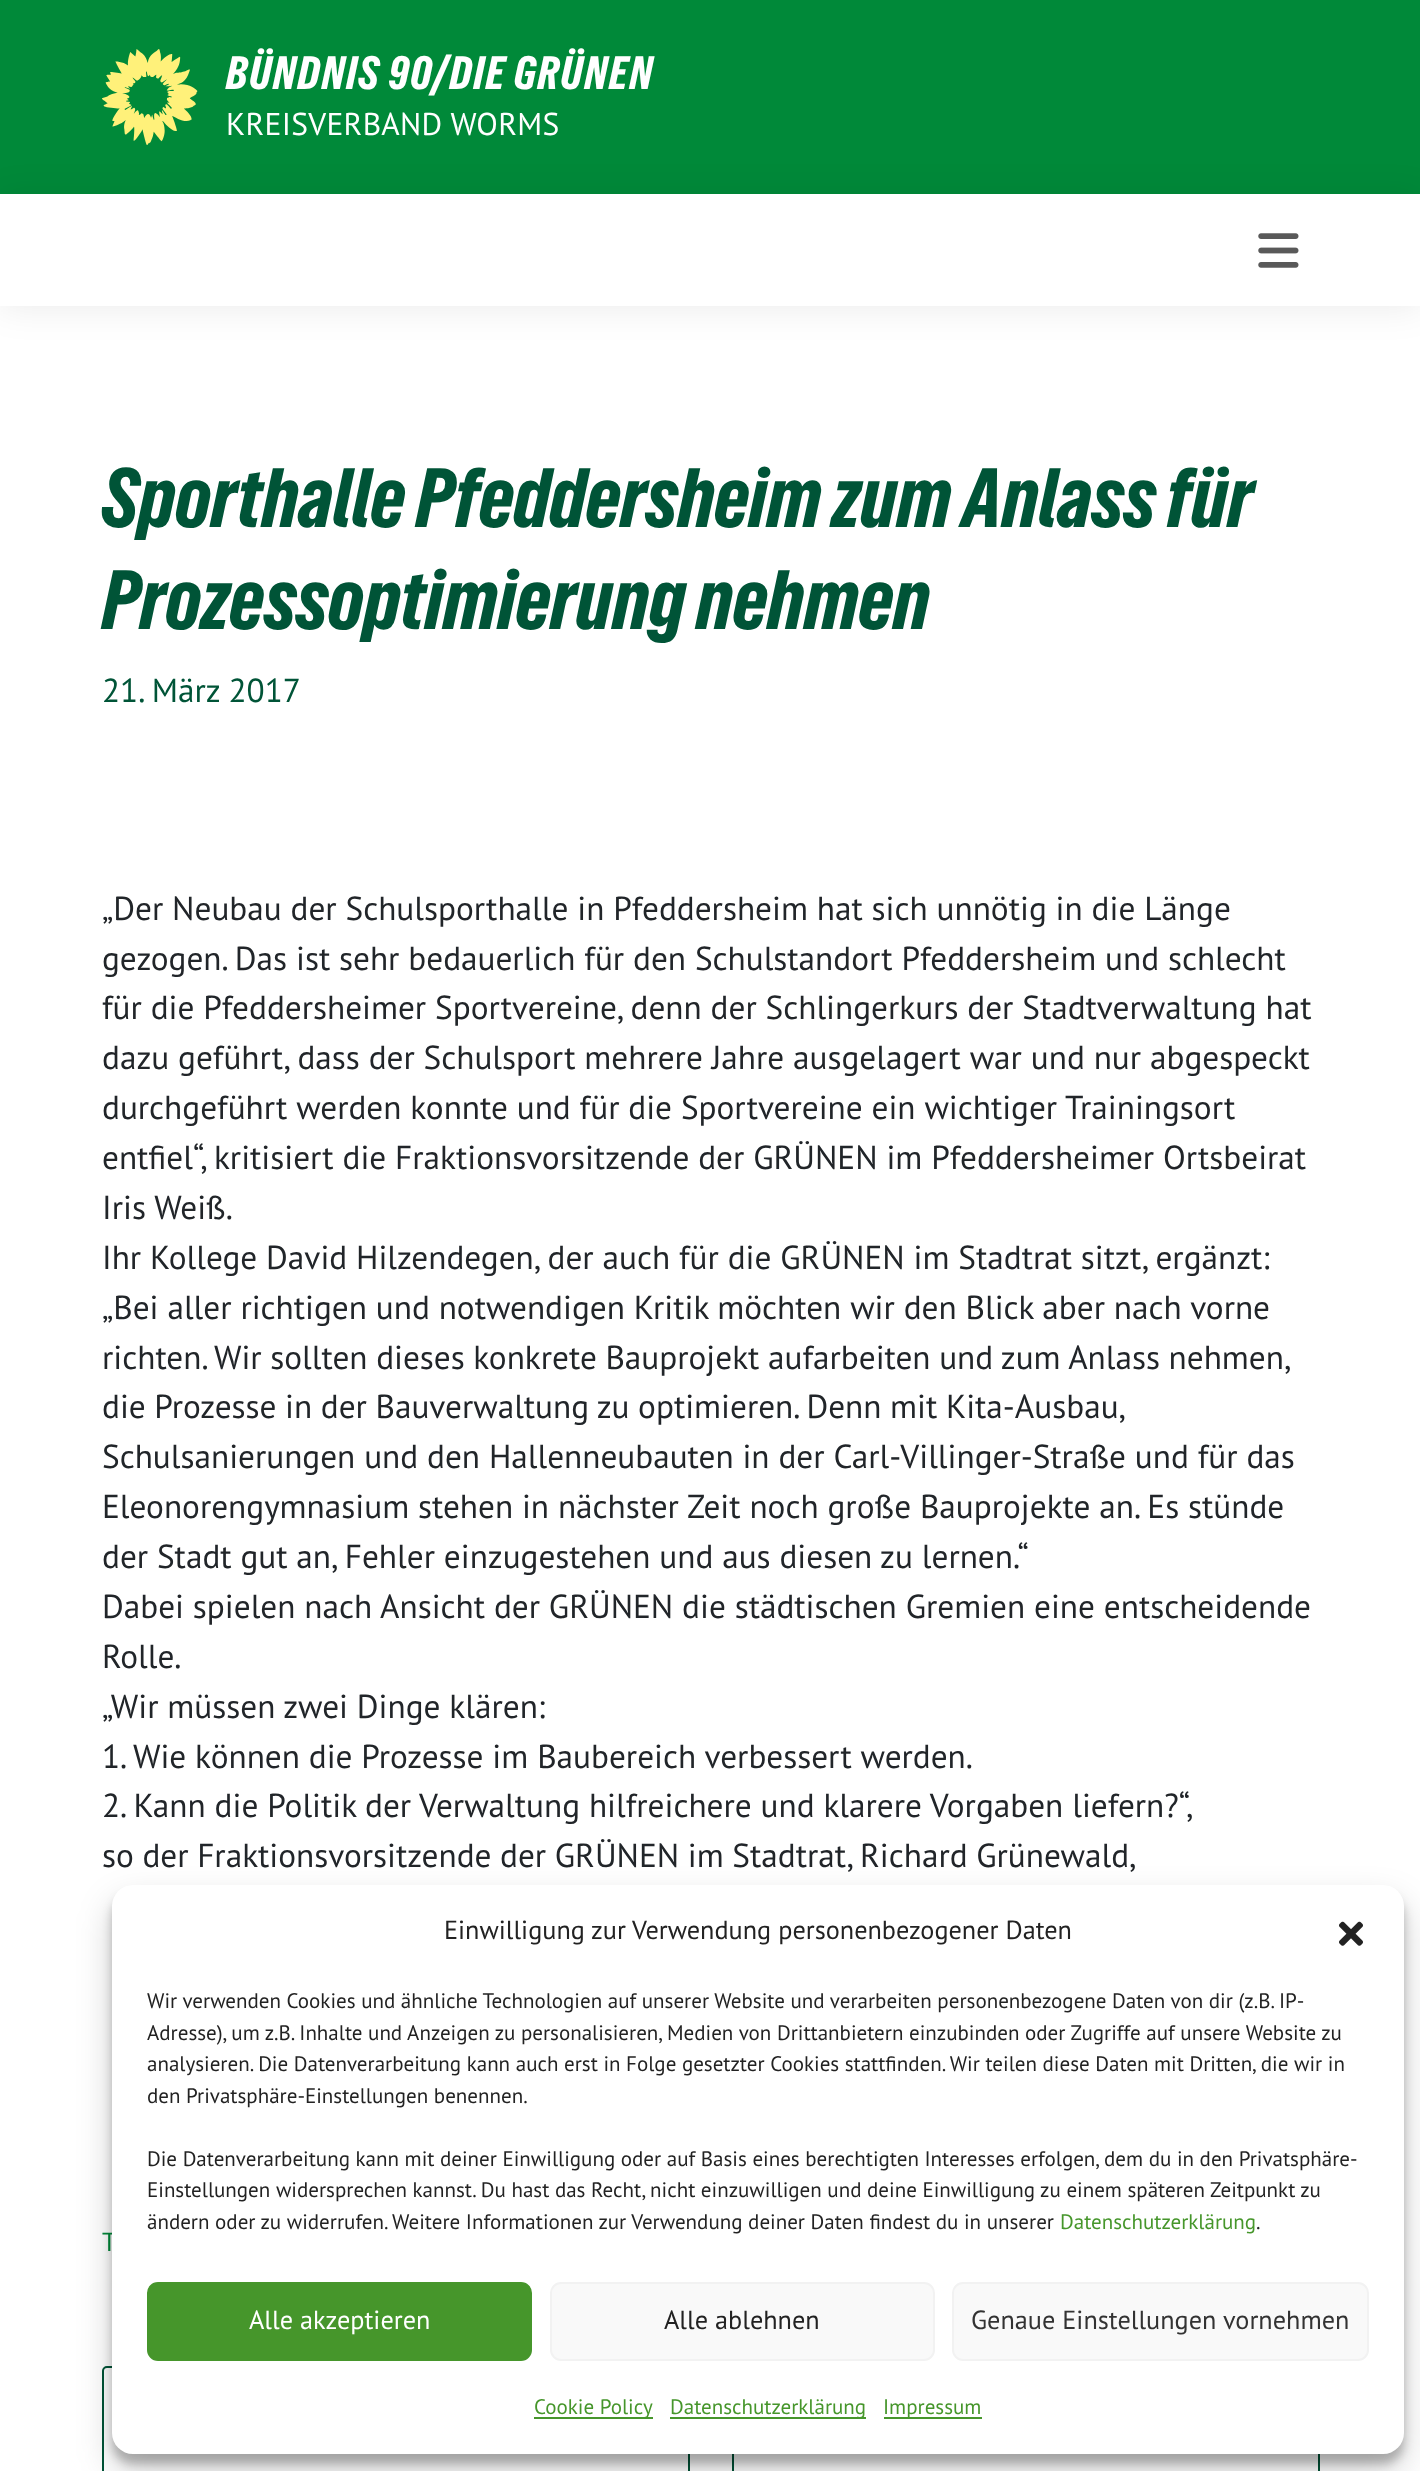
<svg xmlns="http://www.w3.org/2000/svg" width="1420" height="2471">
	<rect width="100%" height="100%" fill="#FFFFFF" />
	<rect x="0" y="0" width="1420" height="194" fill="#008939" />
	<image x="102" y="49" width="96" height="96" href="assets/img1.png" />
	<text x="226" y="89" font-family="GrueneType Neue" font-size="43.75" letter-spacing="1.75" fill="#FFFFFF">BÜNDNIS 90/DIE GRÜNEN</text>
	<text x="226" y="135" font-family="PT Sans" font-size="31.5" letter-spacing="0.3" fill="#FFFFFF">KREISVERBAND WORMS</text>
	<rect x="0" y="196" width="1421" height="112" fill="#000000" fill-opacity="0.08" filter="blur(17.5px)" />
	<rect x="0" y="194" width="1420" height="112" fill="#FFFFFF" />
	<image x="1258" y="233" width="41" height="35" href="assets/img2.png" />
	<g font-family="GrueneType Neue" font-size="78.75" fill="#005437">
		<text x="102" y="527">Sporthalle Pfeddersheim zum Anlass für</text>
		<text x="102" y="629">Prozessoptimierung nehmen</text>
	</g>
	<text x="102" y="702" font-family="PT Sans" font-size="33.25" fill="#005437">21. März 2017</text>
	<g font-family="PT Sans" font-size="33.25" fill="#212529">
		<text x="102" y="920">„Der Neubau der Schulsporthalle in Pfeddersheim hat sich unnötig in die Länge</text>
		<text x="102" y="970">gezogen. Das ist sehr bedauerlich für den Schulstandort Pfeddersheim und schlecht</text>
		<text x="102" y="1019">für die Pfeddersheimer Sportvereine, denn der Schlingerkurs der Stadtverwaltung hat</text>
		<text x="102" y="1069">dazu geführt, dass der Schulsport mehrere Jahre ausgelagert war und nur abgespeckt</text>
		<text x="102" y="1119">durchgeführt werden konnte und für die Sportvereine ein wichtiger Trainingsort</text>
		<text x="102" y="1169">entfiel“, kritisiert die Fraktionsvorsitzende der GRÜNEN im Pfeddersheimer Ortsbeirat</text>
		<text x="102" y="1219">Iris Weiß.</text>
		<text x="102" y="1269">Ihr Kollege David Hilzendegen, der auch für die GRÜNEN im Stadtrat sitzt, ergänzt:</text>
		<text x="102" y="1319">„Bei aller richtigen und notwendigen Kritik möchten wir den Blick aber nach vorne</text>
		<text x="102" y="1369" word-spacing="-0.25">richten. Wir sollten dieses konkrete Bauprojekt aufarbeiten und zum Anlass nehmen,</text>
		<text x="102" y="1418" word-spacing="-0.25">die Prozesse in der Bauverwaltung zu optimieren. Denn mit Kita-Ausbau,</text>
		<text x="102" y="1468">Schulsanierungen und den Hallenneubauten in der Carl-Villinger-Straße und für das</text>
		<text x="102" y="1518">Eleonorengymnasium stehen in nächster Zeit noch große Bauprojekte an. Es stünde</text>
		<text x="102" y="1568">der Stadt gut an, Fehler einzugestehen und aus diesen zu lernen.“</text>
		<text x="102" y="1618">Dabei spielen nach Ansicht der GRÜNEN die städtischen Gremien eine entscheidende</text>
		<text x="102" y="1668">Rolle.</text>
		<text x="102" y="1718">„Wir müssen zwei Dinge klären:</text>
		<text x="102" y="1768">1. Wie können die Prozesse im Baubereich verbessert werden.</text>
		<text x="102" y="1817">2. Kann die Politik der Verwaltung hilfreichere und klarere Vorgaben liefern?“,</text>
		<text x="102" y="1867" word-spacing="-0.25">so der Fraktionsvorsitzende der GRÜNEN im Stadtrat, Richard Grünewald,</text>
	</g>
	<text x="102" y="2251" font-family="PT Sans" font-size="26.25" fill="#008939">T</text>
	<rect x="103" y="2367" width="586" height="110" rx="4" fill="none" stroke="#005437" stroke-width="2" />
	<rect x="733" y="2367" width="586" height="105" fill="none" stroke="#005437" stroke-width="2" />
	<rect x="112" y="1895" width="1292" height="569" rx="21" fill="#000000" fill-opacity="0.23" filter="blur(5px)" />
	<rect x="112" y="1902" width="1292" height="569" rx="21" fill="#000000" fill-opacity="0.19" filter="blur(17.5px)" />
	<rect x="112" y="1885" width="1292" height="569" rx="21" fill="#FFFFFF" />
	<text x="444" y="1939" font-family="PT Sans" font-size="26.25" fill="#222222">Einwilligung zur Verwendung personenbezogener Daten</text>
	<image x="1339" y="1921" width="24" height="25" href="assets/img3.png" />
	<g font-family="PT Sans" font-size="21" fill="#222222">
		<text x="147" y="2008">Wir verwenden Cookies und ähnliche Technologien auf unserer Website und verarbeiten personenbezogene Daten von dir (z.B. IP-</text>
		<text x="147" y="2040">Adresse), um z.B. Inhalte und Anzeigen zu personalisieren, Medien von Drittanbietern einzubinden oder Zugriffe auf unsere Website zu</text>
		<text x="147" y="2071">analysieren. Die Datenverarbeitung kann auch erst in Folge gesetzter Cookies stattfinden. Wir teilen diese Daten mit Dritten, die wir in</text>
		<text x="147" y="2103">den Privatsphäre-Einstellungen benennen.</text>
		<text x="147" y="2166">Die Datenverarbeitung kann mit deiner Einwilligung oder auf Basis eines berechtigten Interesses erfolgen, dem du in den Privatsphäre-</text>
		<text x="147" y="2197">Einstellungen widersprechen kannst. Du hast das Recht, nicht einzuwilligen und deine Einwilligung zu einem späteren Zeitpunkt zu</text>
		<text x="147" y="2229">ändern oder zu widerrufen. Weitere Informationen zur Verwendung deiner Daten findest du in unserer</text>
	</g>
	<text x="1060" y="2229" font-family="PT Sans" font-size="21" fill="#46962B">Datenschutzerklärung</text>
	<text x="1256" y="2229" font-family="PT Sans" font-size="21" fill="#222222">.</text>
	<rect x="148" y="2283" width="383" height="77" rx="10" fill="#46962B" stroke="#46962B" stroke-width="2" />
	<text x="249" y="2329" font-family="PT Sans" font-size="26.25" fill="#FFFFFF">Alle akzeptieren</text>
	<rect x="551" y="2283" width="383" height="77" rx="10" fill="#F9F9F9" stroke="#F2F2F2" stroke-width="2" />
	<text x="664" y="2329" font-family="PT Sans" font-size="26.25" fill="#222222">Alle ablehnen</text>
	<rect x="953" y="2283" width="415" height="77" rx="10" fill="#F9F9F9" stroke="#F2F2F2" stroke-width="2" />
	<text x="971" y="2329" font-family="PT Sans" font-size="26.25" fill="#333333">Genaue Einstellungen vornehmen</text>
	<rect x="534" y="2417" width="119" height="2" fill="#46962B" />
	<text x="534" y="2414" font-family="PT Sans" font-size="21" fill="#46962B">Cookie Policy</text>
	<rect x="670" y="2417" width="196" height="2" fill="#46962B" />
	<text x="670" y="2414" font-family="PT Sans" font-size="21" fill="#46962B">Datenschutzerklärung</text>
	<rect x="884" y="2417" width="98" height="2" fill="#46962B" />
	<text x="883" y="2414" font-family="PT Sans" font-size="21" fill="#46962B">Impressum</text>
</svg>
